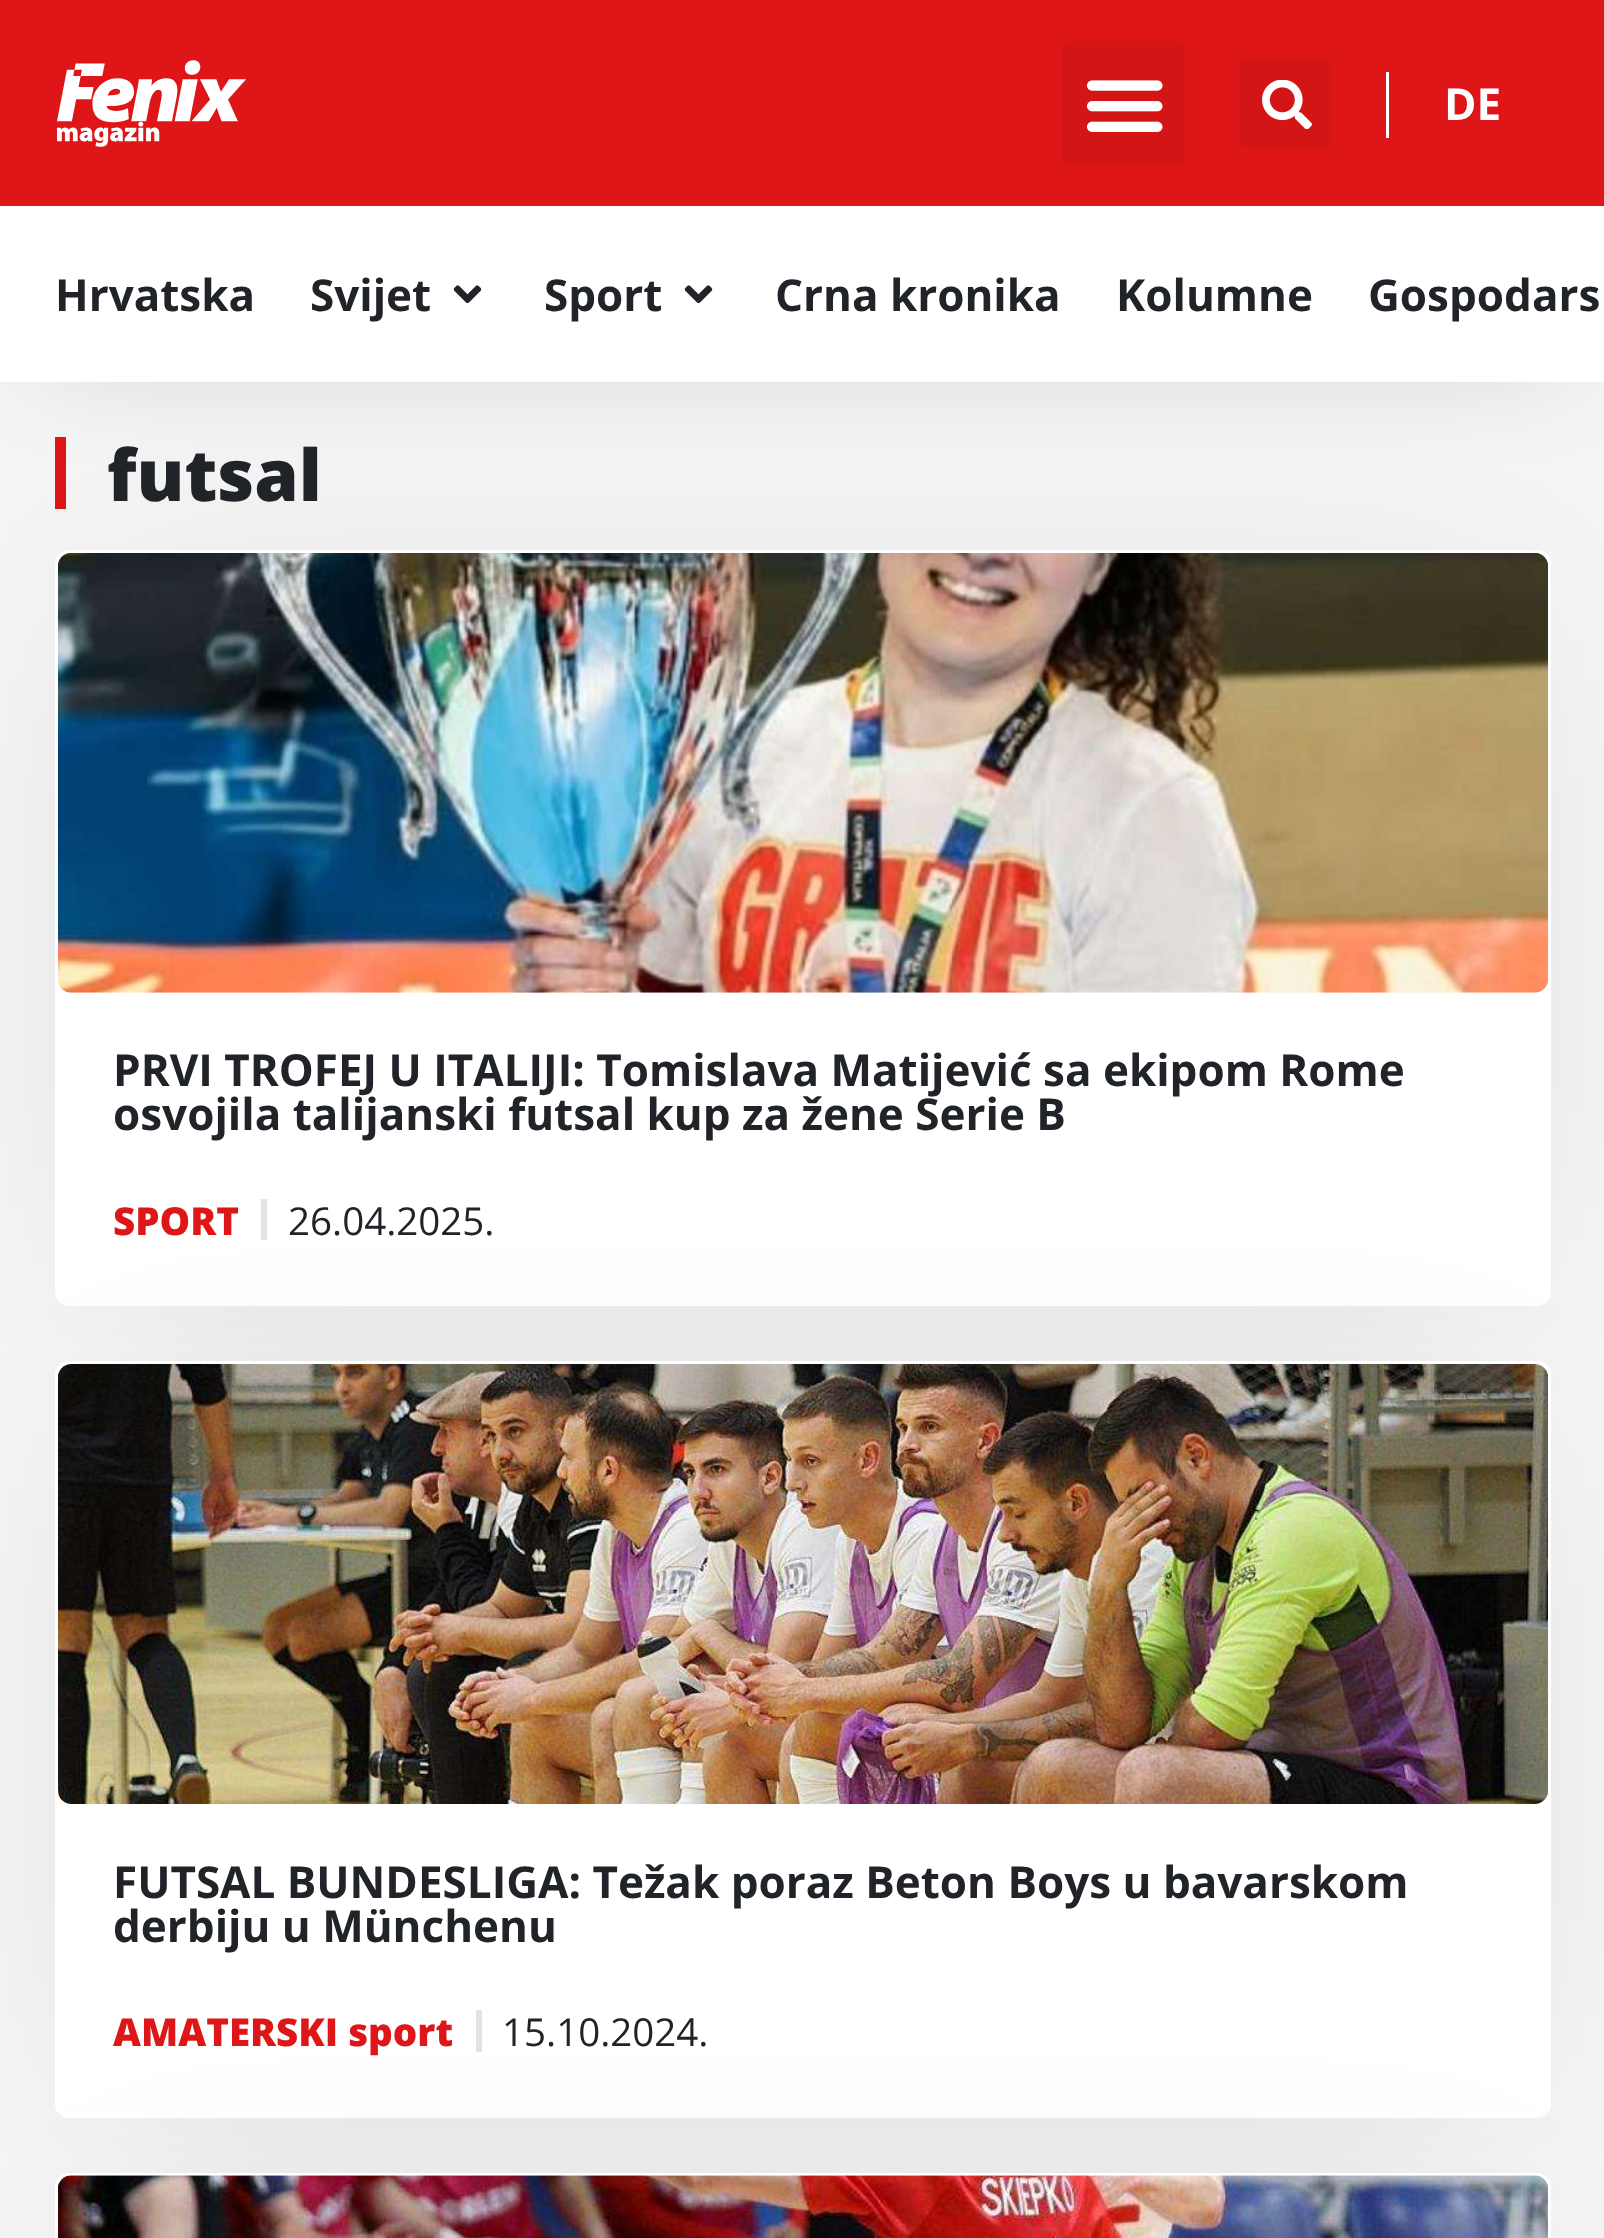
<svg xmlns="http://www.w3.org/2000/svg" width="1604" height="2238">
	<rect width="100%" height="100%" fill="#F4F4F4" />
	<rect x="55" y="437" width="11" height="72" fill="#DE1617" />
	<rect x="50" y="270" width="1507" height="77" fill="#000000" fill-opacity="0.19" filter="blur(58px)" />
	<rect x="0" y="0" width="1604" height="206" fill="#DE1617" />
	<image x="56" y="60" width="190" height="87" href="assets/img1.png" />
	<rect x="1062" y="41" width="123" height="124" rx="8" fill="#D31516" />
	<image x="1087" y="80" width="76" height="52" href="assets/img2.png" />
	<rect x="1240" y="58" width="91" height="91" rx="8" fill="#D31516" />
	<image x="1262" y="80" width="50" height="49" href="assets/img3.png" />
	<rect x="1386" y="72" width="3" height="66" fill="#FFFFFF" />
	<text x="1444" y="120" font-family="Open Sans" font-size="44" font-weight="700" fill="#FFFFFF">DE</text>
	<rect x="135" y="644" width="1336" height="596" fill="#000000" fill-opacity="0.13" filter="blur(106px)" />
	<rect x="0" y="206" width="1604" height="176" fill="#FFFFFF" />
	<g font-family="Open Sans" font-size="44" font-weight="700" fill="#202328">
		<text x="55" y="311">Hrvatska</text>
		<text x="310" y="311">Svijet</text>
	</g>
	<image x="453" y="285" width="29" height="19" href="assets/img4.png" />
	<text x="544" y="311" font-family="Open Sans" font-size="44" font-weight="700" fill="#202328">Sport</text>
	<image x="684" y="285" width="29" height="19" href="assets/img4.png" />
	<g font-family="Open Sans" font-size="44" font-weight="700" fill="#202328">
		<text x="775" y="311">Crna kronika</text>
		<text x="1116" y="311">Kolumne</text>
		<text x="1368" y="311">Gospodars</text>
	</g>
	<text x="107" y="501" font-family="Open Sans" font-size="71.5" font-weight="800" fill="#202328">futsal</text>
	<rect x="56.5" y="551.5" width="1493" height="753" rx="12.5" fill="#FFFFFF" stroke="#FFFFFF" stroke-width="3" />
	<image x="58" y="553" width="1490" height="440" href="assets/img5.png" />
	<g font-family="Open Sans" font-size="44" font-weight="700" fill="#202328">
		<text x="113" y="1086">PRVI TROFEJ U ITALIJI: Tomislava Matijević sa ekipom Rome</text>
		<text x="113" y="1130">osvojila talijanski futsal kup za žene Serie B</text>
	</g>
	<text x="113" y="1235" font-family="Open Sans" font-size="38.5" font-weight="800" fill="#DE1617">SPORT</text>
	<rect x="261" y="1199" width="6" height="41" fill="#E3E3E3" />
	<text x="288" y="1235" font-family="Open Sans" font-size="38.5" fill="#202328">26.04.2025.</text>
	<rect x="135" y="1455" width="1336" height="597" fill="#000000" fill-opacity="0.13" filter="blur(106px)" />
	<rect x="56.5" y="1362.5" width="1493" height="754" rx="12.5" fill="#FFFFFF" stroke="#FFFFFF" stroke-width="3" />
	<image x="58" y="1364" width="1490" height="440" href="assets/img6.png" />
	<g font-family="Open Sans" font-size="44" font-weight="700" fill="#202328">
		<text x="113" y="1898">FUTSAL BUNDESLIGA: Težak poraz Beton Boys u bavarskom</text>
		<text x="113" y="1942">derbiju u Münchenu</text>
	</g>
	<text x="113" y="2046" font-family="Open Sans" font-size="38.5" font-weight="800" fill="#DE1617">AMATERSKI sport</text>
	<rect x="476" y="2010" width="6" height="42" fill="#E3E3E3" />
	<text x="502" y="2046" font-family="Open Sans" font-size="38.5" fill="#202328">15.10.2024.</text>
	<rect x="135" y="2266" width="1336" height="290" fill="#000000" fill-opacity="0.13" filter="blur(106px)" />
	<rect x="56.5" y="2174.5" width="1493" height="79" rx="12.5" fill="#FFFFFF" stroke="#FFFFFF" stroke-width="3" />
	<image x="58" y="2175" width="1490" height="63" href="assets/img7.png" />
</svg>
